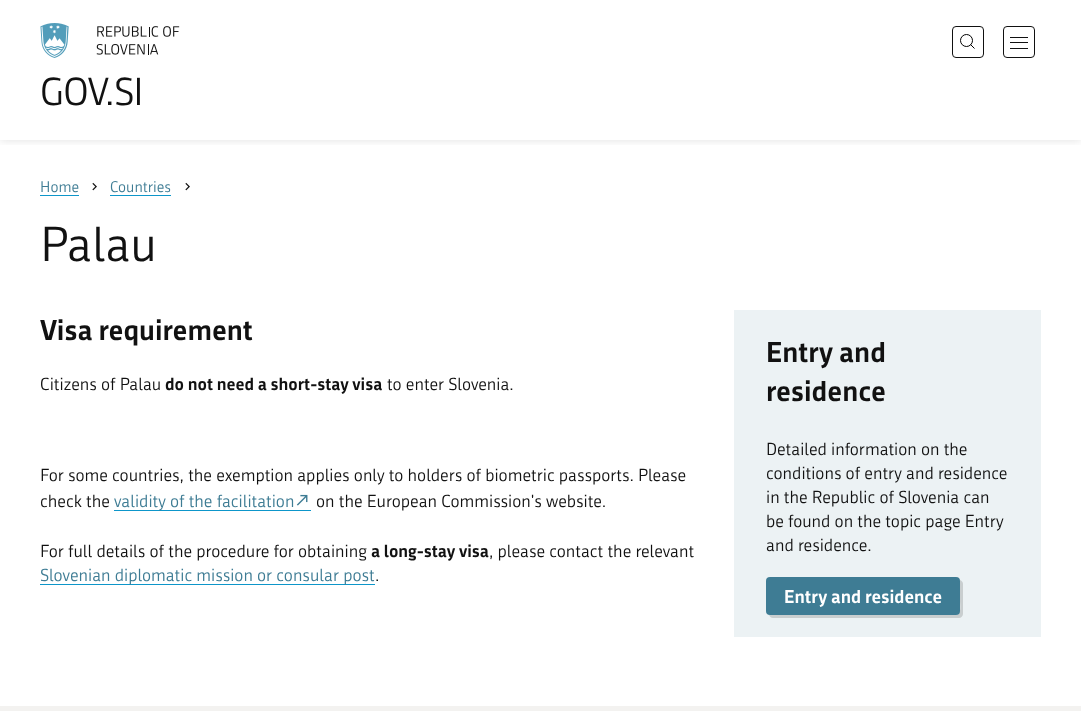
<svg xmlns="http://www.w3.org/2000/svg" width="1081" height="711">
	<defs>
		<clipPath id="clip1"><rect x="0" y="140" width="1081" height="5" /></clipPath>
	</defs>
	<rect width="100%" height="100%" fill="#FFFFFF" />
	<g clip-path="url(#clip1)">
		<rect x="0" y="0" width="1081" height="140" fill="#000000" fill-opacity="0.12" filter="blur(5px)" />
	</g>
	<rect x="952.5" y="26.5" width="31" height="31" rx="3.5" fill="none" stroke="#111111" />
	<circle cx="966.5" cy="40.5" r="6" fill="none" stroke="#000000" />
	<path d="M970.5 44.5L974.5 48.5" fill="none" stroke="#000000" />
	<rect x="1003.5" y="26.5" width="31" height="31" rx="3.5" fill="none" stroke="#111111" />
	<rect x="1010" y="48" width="18" height="1" fill="#111111" />
	<rect x="1010" y="37" width="18" height="1" fill="#111111" />
	<rect x="1010" y="42" width="18" height="1" fill="#111111" />
	<image x="40" y="23" width="140" height="35" href="assets/img1.png" />
	<text x="40" y="105" font-family="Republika" font-size="38" letter-spacing="-0.75" fill="#111111">GOV.SI</text>
	<text x="40" y="192" font-family="Republika" font-size="15" fill="#3E7C94">Home</text>
	<rect x="40" y="195" width="39" height="1" fill="#0D96CA" />
	<image x="92" y="182" width="5" height="9" href="assets/img2.png" />
	<text x="110" y="192" font-family="Republika" font-size="15" fill="#3E7C94">Countries</text>
	<rect x="110" y="195" width="61" height="1" fill="#0D96CA" />
	<image x="185" y="182" width="5" height="9" href="assets/img2.png" />
	<text x="40" y="261" font-family="Republika" font-size="48" fill="#111111">Palau</text>
	<text x="40" y="340" font-family="Republika" font-size="28" font-weight="700" fill="#111111">Visa requirement</text>
	<text x="40" y="390" font-family="Republika" font-size="17" fill="#111111">Citizens of Palau</text>
	<text x="165" y="390" font-family="Republika" font-size="17" font-weight="700" fill="#111111">do not need a short-stay visa</text>
	<g font-family="Republika" font-size="17" fill="#111111">
		<text x="387" y="390">to enter Slovenia.</text>
		<text x="40" y="481">For some countries, the exemption applies only to holders of biometric passports. Please</text>
		<text x="40" y="507">check the</text>
	</g>
	<rect x="114" y="510" width="197" height="1" fill="#0D96CA" />
	<text x="114" y="507" font-family="Republika" font-size="17" fill="#3E7C94">validity of the facilitation</text>
	<image x="296" y="494" width="12" height="12" href="assets/img3.png" />
	<g font-family="Republika" font-size="17" fill="#111111">
		<text x="316" y="507">on the European Commission's website.</text>
		<text x="40" y="557">For full details of the procedure for obtaining</text>
	</g>
	<text x="371" y="557" font-family="Republika" font-size="17" font-weight="700" fill="#111111">a long-stay visa</text>
	<text x="489" y="557" font-family="Republika" font-size="17" fill="#111111">, please contact the relevant</text>
	<rect x="40" y="584" width="335" height="1" fill="#0D96CA" />
	<text x="40" y="581" font-family="Republika" font-size="17" fill="#3E7C94">Slovenian diplomatic mission or consular post</text>
	<text x="375" y="581" font-family="Republika" font-size="17" fill="#111111">.</text>
	<rect x="734" y="310" width="307" height="327" fill="#ECF2F4" />
	<g font-family="Republika" font-size="28" font-weight="700" fill="#111111">
		<text x="766" y="362">Entry and</text>
		<text x="766" y="401">residence</text>
	</g>
	<g font-family="Republika" font-size="17" fill="#111111">
		<text x="766" y="455">Detailed information on the</text>
		<text x="766" y="479">conditions of entry and residence</text>
		<text x="766" y="503">in the Republic of Slovenia can</text>
		<text x="766" y="527">be found on the topic page Entry</text>
		<text x="766" y="551">and residence.</text>
	</g>
	<path d="M769 615C770 617 771 618 773 618H959C961 618 963 616 963 614V584C963 582 962 581 960 580V601C960 604 962 615 956 615Z" fill="#C9CECF" />
	<rect x="766" y="577" width="194" height="38" rx="4" fill="#3E7C94" />
	<text x="784" y="603" font-family="Republika" font-size="18" font-weight="700" fill="#FFFFFF">Entry and residence</text>
	<rect x="0" y="706" width="1081" height="5" fill="#F3F2F0" />
</svg>
